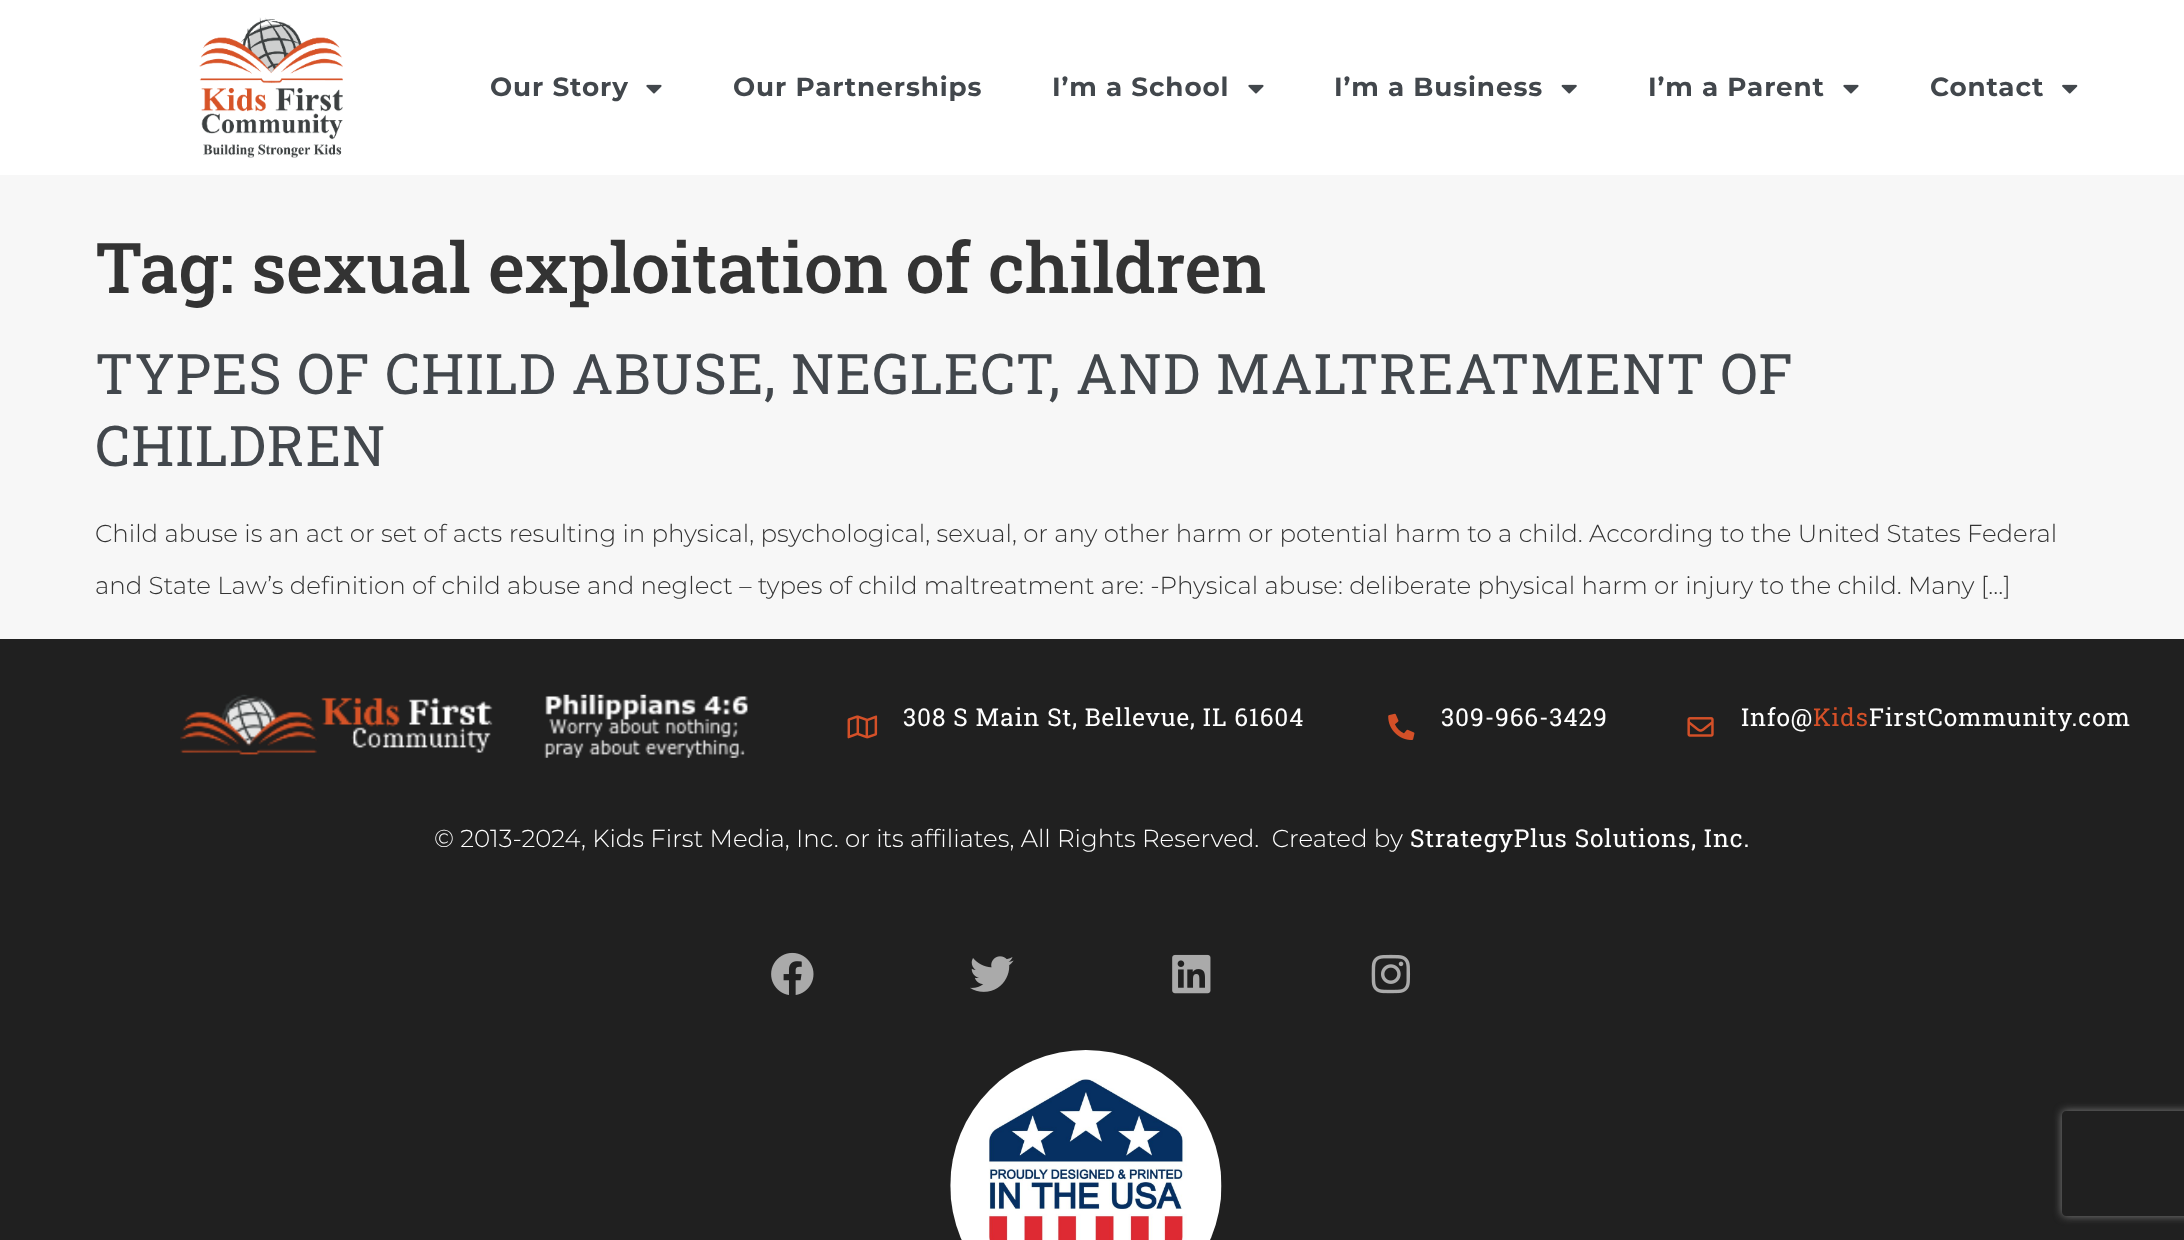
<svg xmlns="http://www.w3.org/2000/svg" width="2184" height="1240">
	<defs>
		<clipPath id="clip1"><path d="M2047 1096H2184V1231H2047ZM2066 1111H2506C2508 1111 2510 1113 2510 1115V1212C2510 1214 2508 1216 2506 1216H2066C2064 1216 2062 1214 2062 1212V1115C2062 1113 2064 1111 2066 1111Z" clip-rule="evenodd" /></clipPath>
	</defs>
	<rect width="100%" height="100%" fill="#F7F7F7" />
	<rect x="0" y="0" width="2184" height="175" fill="#FFFFFF" />
	<image x="199" y="17" width="144" height="141" href="assets/img1.png" />
	<text x="490" y="96" font-family="Montserrat" font-size="26.25" font-weight="700" letter-spacing="0.88" fill="#42474C">Our Story</text>
	<image x="646" y="84" width="16" height="10" href="assets/img2.png" />
	<g font-family="Montserrat" font-size="26.25" font-weight="700" letter-spacing="0.88" fill="#42474C">
		<text x="733" y="96">Our Partnerships</text>
		<text x="1052" y="96">I’m a School</text>
	</g>
	<image x="1248" y="84" width="16" height="10" href="assets/img2.png" />
	<text x="1334" y="96" font-family="Montserrat" font-size="26.25" font-weight="700" letter-spacing="0.88" fill="#42474C">I’m a Business</text>
	<image x="1561" y="84" width="16" height="10" href="assets/img3.png" />
	<text x="1648" y="96" font-family="Montserrat" font-size="26.25" font-weight="700" letter-spacing="0.88" fill="#42474C">I’m a Parent</text>
	<image x="1843" y="84" width="16" height="10" href="assets/img2.png" />
	<text x="1930" y="96" font-family="Montserrat" font-size="26.25" font-weight="700" letter-spacing="0.88" fill="#42474C">Contact</text>
	<image x="2062" y="84" width="16" height="10" href="assets/img4.png" />
	<text x="95" y="293" font-family="Roboto Slab" font-size="70" font-weight="500" fill="#333333">Tag: sexual exploitation of children</text>
	<g font-family="Roboto Slab" font-size="56" letter-spacing="0.88" fill="#42474C">
		<text x="95" y="394">TYPES OF CHILD ABUSE, NEGLECT, AND MALTREATMENT OF</text>
		<text x="95" y="466">CHILDREN</text>
	</g>
	<g font-family="Montserrat" font-size="24.5" font-weight="300" fill="#333333">
		<text x="95" y="542">Child abuse is an act or set of acts resulting in physical, psychological, sexual, or any other harm or potential harm to a child. According to the United States Federal</text>
		<text x="95" y="594">and State Law’s definition of child abuse and neglect – types of child maltreatment are: -Physical abuse: deliberate physical harm or injury to the child. Many […]</text>
	</g>
	<rect x="0" y="639" width="2184" height="601" fill="#202020" />
	<image x="180" y="694" width="568" height="64" href="assets/img5.png" />
	<image x="847" y="715" width="31" height="24" href="assets/img6.png" />
	<text x="903" y="726" font-family="Roboto Slab" font-size="24.5" letter-spacing="0.88" fill="#FFFFFF">308 S Main St, Bellevue, IL 61604</text>
	<image x="1388" y="713" width="27" height="27" href="assets/img7.png" />
	<text x="1441" y="726" font-family="Roboto Slab" font-size="24.5" letter-spacing="0.88" fill="#FFFFFF">309-966-3429</text>
	<image x="1687" y="717" width="27" height="20" href="assets/img8.png" />
	<text x="1741" y="726" font-family="Roboto Slab" font-size="24.5" letter-spacing="0.88" fill="#FFFFFF">Info@</text>
	<text x="1813" y="726" font-family="Roboto Slab" font-size="24.5" letter-spacing="0.88" fill="#D45028">Kids</text>
	<text x="1869" y="726" font-family="Roboto Slab" font-size="24.5" letter-spacing="0.88" fill="#FFFFFF">FirstCommunity.com</text>
	<text x="434" y="847" font-family="Montserrat" font-size="24.5" font-weight="300" fill="#FFFFFF" xml:space="preserve">© 2013-2024, Kids First Media, Inc. or its affiliates, All Rights Reserved.  Created by</text>
	<text x="1410" y="847" font-family="Roboto Slab" font-size="24.5" letter-spacing="0.88" fill="#FFFFFF">StrategyPlus Solutions, Inc.</text>
	<image x="771" y="952" width="43" height="43" href="assets/img9.png" />
	<image x="970" y="956" width="44" height="36" href="assets/img10.png" />
	<image x="1172" y="954" width="39" height="40" href="assets/img11.png" />
	<image x="1371" y="954" width="40" height="40" href="assets/img12.png" />
	<image x="950" y="1050" width="272" height="190" href="assets/img13.png" />
	<g clip-path="url(#clip1)">
		<rect x="2062" y="1111" width="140" height="105" rx="4" fill="#808080" filter="blur(4.5px)" />
	</g>
</svg>
